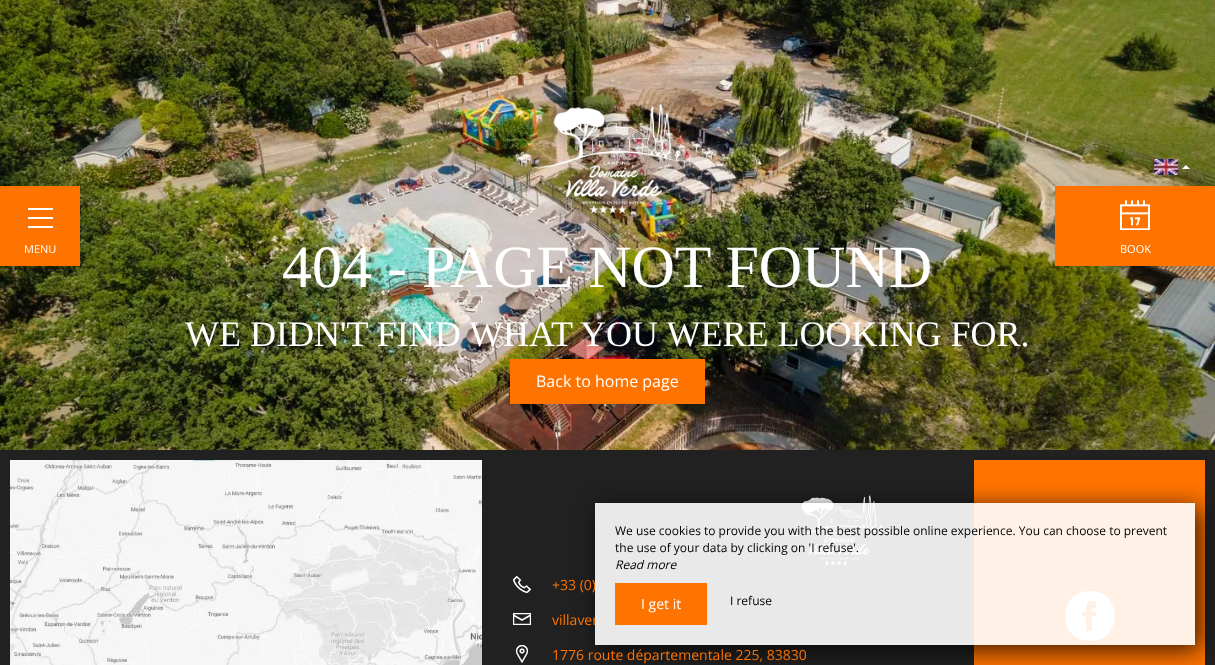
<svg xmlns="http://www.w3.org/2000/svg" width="1215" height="665">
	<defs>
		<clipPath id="clip1"><path d="M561 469H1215V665H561ZM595 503H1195V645H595Z" clip-rule="evenodd" /></clipPath>
	</defs>
	<rect width="100%" height="100%" fill="#212121" />
	<image x="0" y="0" width="1215" height="450" href="assets/img3.png" />
	<image x="1154" y="159" width="24" height="16" href="assets/img1.png" />
	<path d="M1190 169H1182L1186 165Z" fill="#FFFFFF" />
	<rect x="0" y="186" width="80" height="80" fill="#000000" fill-opacity="0.1" filter="blur(7.5px)" />
	<rect x="0" y="186" width="80" height="80" fill="#FF7300" />
	<rect x="28" y="208" width="25" height="2" fill="#FFFFFF" />
	<rect x="28" y="217" width="25" height="2" fill="#FFFFFF" />
	<rect x="28" y="226" width="25" height="2" fill="#FFFFFF" />
	<text x="24" y="253" font-family="Open Sans" font-size="11" fill="#FFFFFF">MENU</text>
	<rect x="1055" y="186" width="160" height="80" fill="#000000" fill-opacity="0.1" filter="blur(7.5px)" />
	<rect x="1055" y="186" width="160" height="80" fill="#FF7300" />
	<image x="1120" y="200" width="30" height="30" href="assets/img2.png" />
	<text x="1120" y="253" font-family="Open Sans" font-size="11" fill="#FFFFFF">BOOK</text>
	<image x="533" y="93" width="154" height="130" href="assets/img4.png" />
	<text x="282" y="287" font-family="Liberation Serif" font-size="60" fill="#FFFFFF">404 - PAGE NOT FOUND</text>
	<text x="185" y="346" font-family="Liberation Serif" font-size="36" fill="#FFFFFF">WE DIDN'T FIND WHAT YOU WERE LOOKING FOR.</text>
	<rect x="510" y="359" width="195" height="45" fill="#FF7300" />
	<text x="536" y="387" font-family="Open Sans" font-size="16" fill="#FFFFFF">Back to home page</text>
	<image x="788" y="495" width="95" height="71" href="assets/img6.png" />
	<rect x="974" y="460" width="231" height="205" fill="#FF7300" />
	<path d="M1090 591C1057 591 1057 641 1090 641C1123 641 1123 591 1090 591ZM1096 608C1092 608 1092 607 1092 612H1096V616H1092V631H1086V616H1082V612H1086C1086 602 1087 601 1096 601Z" fill="#FFFFFF" />
	<g clip-path="url(#clip1)">
		<rect x="600" y="508" width="600" height="142" fill="#000000" fill-opacity="0.8" filter="blur(12.5px)" />
	</g>
	<g font-family="Open Sans" font-size="14" fill="#FF7300">
		<text x="552" y="590">+33 (0)</text>
		<text x="552" y="625">villaver</text>
	</g>
	<rect x="595" y="503" width="600" height="142" fill="#FFFFFF" fill-opacity="0.9" />
	<g font-family="Open Sans" font-size="12" fill="#000000">
		<text x="615" y="535">We use cookies to provide you with the best possible online experience. You can choose to prevent</text>
		<text x="615" y="552">the use of your data by clicking on 'I refuse'.</text>
	</g>
	<text x="615" y="569" font-family="Open Sans" font-size="12" font-style="italic" fill="#000000">Read more</text>
	<rect x="615" y="583" width="92" height="42" fill="#FF7300" />
	<text x="641" y="609" font-family="Open Sans" font-size="14" fill="#FFFFFF">I get it</text>
	<text x="730" y="605" font-family="Open Sans" font-size="12" fill="#000000">I refuse</text>
	<image x="10" y="460" width="472" height="205" href="assets/img5.png" />
	<image x="513" y="576" width="18" height="17" href="assets/img7.png" />
	<image x="513" y="613" width="18" height="12" href="assets/img8.png" />
	<image x="516" y="645" width="12" height="18" href="assets/img9.png" />
	<text x="552" y="660" font-family="Open Sans" font-size="14" fill="#FF7300">1776 route départementale 225, 83830</text>
</svg>
